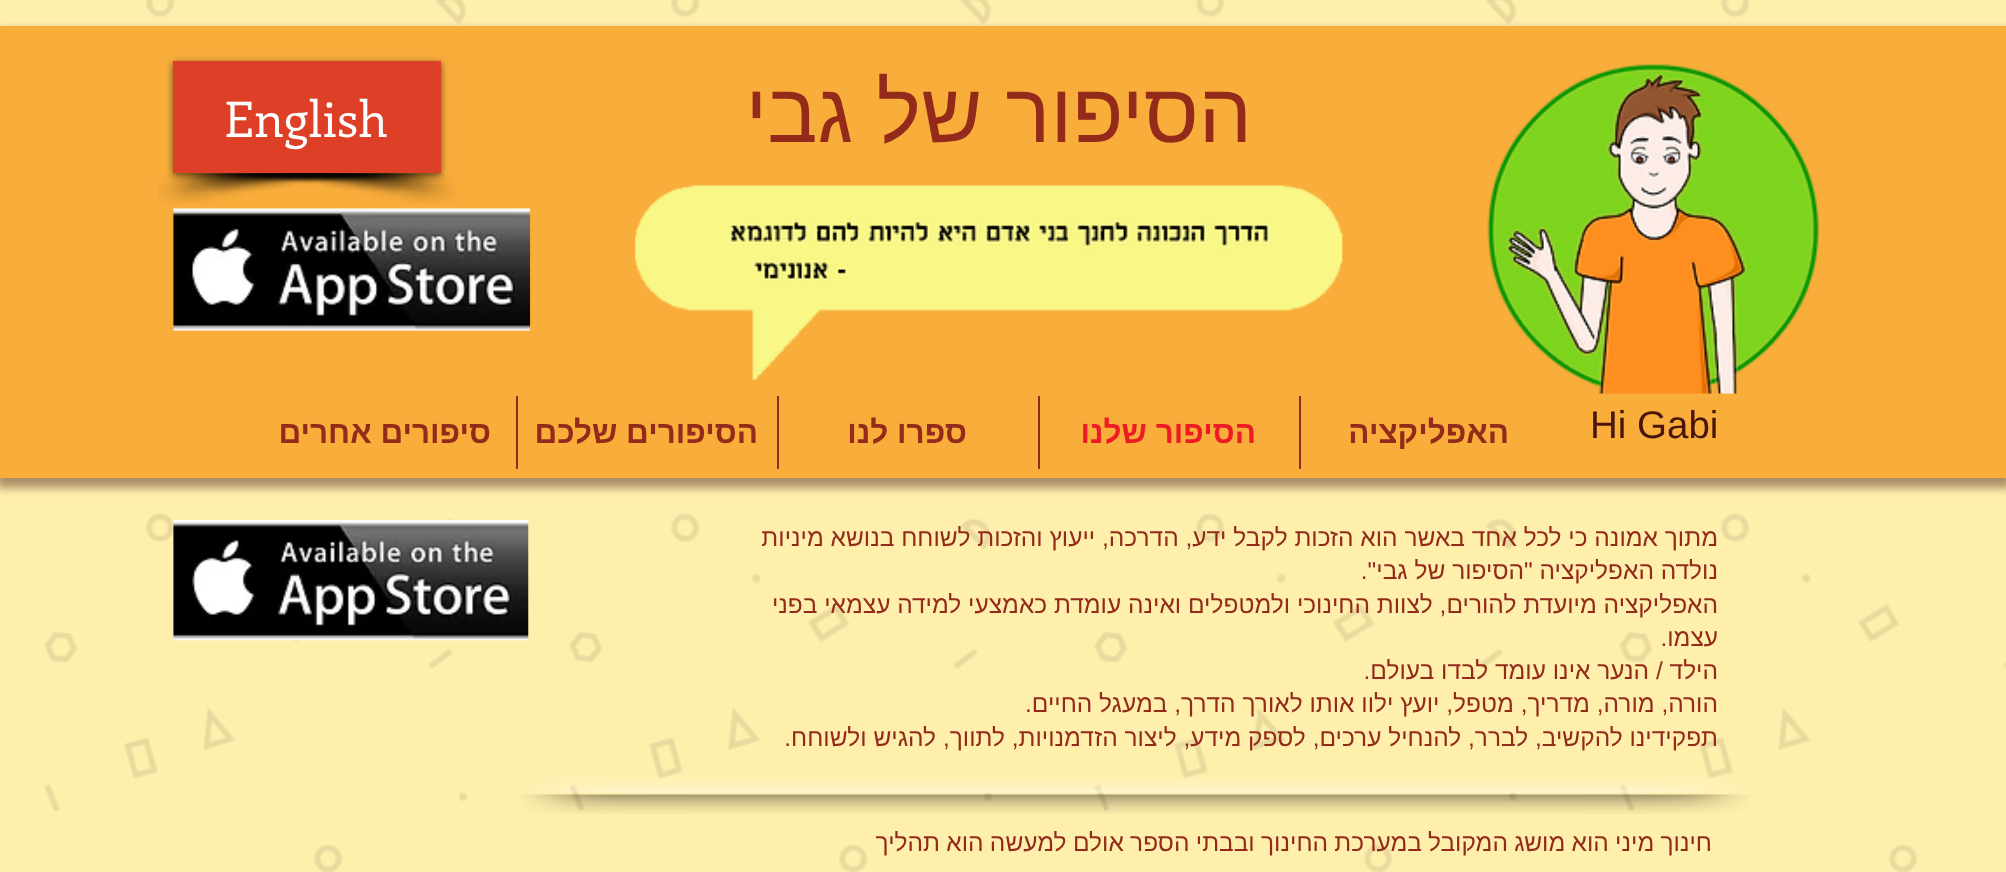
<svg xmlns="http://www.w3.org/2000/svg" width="2006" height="872">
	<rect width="100%" height="100%" fill="#FFEFAD" />
	<image x="44" y="0" width="1962" height="872" href="assets/img1.png" />
	<rect x="-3" y="30" width="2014" height="458" fill="#896549" fill-opacity="0.7" filter="blur(4.5px)" />
	<rect x="0" y="26" width="2006" height="452" fill="#F9AD3B" />
	<image x="1487" y="64" width="332" height="330" href="assets/img2.png" />
	<text x="1252" y="142" font-family="Liberation Sans" font-size="84" direction="rtl" fill="#932A1A">הסיפור של גבי</text>
	<image x="158" y="173" width="260" height="31" href="assets/img3.png" />
	<image x="196" y="173" width="260" height="31" href="assets/img4.png" />
	<rect x="173" y="63" width="268" height="112" fill="#000000" fill-opacity="0.6" filter="blur(3.5px)" />
	<rect x="173" y="61" width="268" height="112" fill="#DD4027" />
	<text x="224" y="137" font-family="Enriqueta" font-size="49" fill="#FFFFFF">English</text>
	<image x="635" y="185" width="708" height="195" href="assets/img5.png" />
	<image x="173" y="208" width="358" height="123" href="assets/img6.png" />
	<text x="1590" y="438" font-family="Liberation Sans" font-size="38.5" fill="#49150D">Hi Gabi</text>
	<rect x="1299" y="396" width="2" height="73" fill="#932A1A" />
	<text x="1509" y="443" font-family="Liberation Sans" font-size="31.5" font-weight="700" direction="rtl" fill="#932A1A">האפליקציה</text>
	<rect x="1038" y="396" width="2" height="73" fill="#932A1A" />
	<text x="1256" y="443" font-family="Liberation Sans" font-size="31.5" font-weight="700" direction="rtl" fill="#ED1C24">הסיפור שלנו</text>
	<rect x="777" y="396" width="2" height="73" fill="#932A1A" />
	<text x="967" y="443" font-family="Liberation Sans" font-size="31.5" font-weight="700" direction="rtl" fill="#932A1A">ספרו לנו</text>
	<rect x="516" y="396" width="2" height="73" fill="#932A1A" />
	<g font-family="Liberation Sans" font-size="31.5" font-weight="700" direction="rtl" fill="#932A1A">
		<text x="758" y="443">הסיפורים שלכם</text>
		<text x="491" y="443">סיפורים אחרים</text>
	</g>
	<g font-family="Liberation Sans" font-size="24.5" direction="rtl" fill="#932A1A">
		<text x="1718" y="546">מתוך אמונה כי לכל אחד באשר הוא הזכות לקבל ידע, הדרכה, ייעוץ והזכות לשוחח בנושא מיניות</text>
		<text x="1718" y="579">נולדה האפליקציה "הסיפור של גבי".</text>
		<text x="1718" y="613">האפליקציה מיועדת להורים, לצוות החינוכי ולמטפלים ואינה עומדת כאמצעי למידה עצמאי בפני</text>
		<text x="1718" y="646">עצמו.</text>
		<text x="1718" y="679">הילד / הנער אינו עומד לבדו בעולם.</text>
		<text x="1718" y="712">הורה, מורה, מדריך, מטפל, יועץ ילוו אותו לאורך הדרך, במעגל החיים.</text>
		<text x="1718" y="746">תפקידינו להקשיב, לברר, להנחיל ערכים, לספק מידע, ליצור הזדמנויות, לתווך, להגיש ולשוחח.</text>
	</g>
	<image x="173" y="519" width="356" height="122" href="assets/img7.png" />
	<image x="689" y="775" width="892" height="39" href="assets/img9.png" />
	<image x="1580" y="776" width="169" height="38" href="assets/img8.png" />
	<image x="521" y="775" width="169" height="39" href="assets/img10.png" />
	<g font-family="Liberation Sans" font-size="24.5" direction="rtl" fill="#932A1A">
		<text x="1712" y="851" word-spacing="-0.5">חינוך מיני הוא מושג המקובל</text>
		<text x="1422" y="851" word-spacing="-0.5">במערכת החינוך ובבתי הספר אולם למעשה הוא תהליך</text>
	</g>
</svg>
